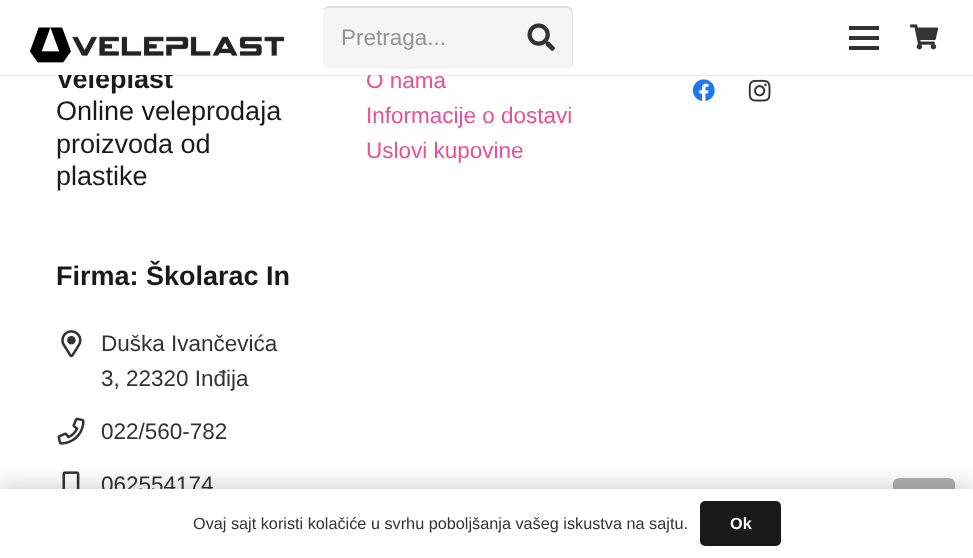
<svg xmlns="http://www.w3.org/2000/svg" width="973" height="558">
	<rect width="100%" height="100%" fill="#FFFFFF" />
	<path d="M0 75V76H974V1V75Z" fill="#000000" fill-opacity="0.08" />
	<text x="56" y="88" font-family="Liberation Sans" font-size="27" font-weight="700" fill="#1A1A1A">Veleplast</text>
	<text x="366" y="88" font-family="Liberation Sans" font-size="22.5" fill="#E95095">O nama</text>
	<rect x="56" y="68" width="325" height="7" fill="#FFFFFF" />
	<image x="29" y="27" width="256" height="36" href="assets/img1.png" />
	<rect x="323" y="6" width="250" height="63" rx="6" fill="#F5F5F5" />
	<path d="M329 8H566C569 8 572 11 572 14V63C572 65 571 67 570 68C572 67 573 65 573 63V12C573 9 570 6 567 6H329C326 6 323 8 323 11C324 9 327 8 329 8Z" fill="#000000" fill-opacity="0.08" />
	<text x="341" y="45" font-family="Liberation Sans" font-size="22.5" fill="#949494">Pretraga...</text>
	<image x="527" y="23" width="28" height="28" href="assets/img2.png" />
	<rect x="849" y="36" width="30" height="4" fill="#333333" />
	<rect x="849" y="26" width="30" height="4" fill="#333333" />
	<rect x="849" y="46" width="30" height="4" fill="#333333" />
	<image x="910" y="24" width="29" height="26" href="assets/img3.png" />
	<g font-family="Liberation Sans" font-size="27" fill="#1A1A1A">
		<text x="56" y="120">Online veleprodaja</text>
		<text x="56" y="153">proizvoda od</text>
		<text x="56" y="185">plastike</text>
	</g>
	<text x="56" y="285" font-family="Liberation Sans" font-size="27" font-weight="700" fill="#1A1A1A">Firma: Školarac In</text>
	<image x="61" y="330" width="21" height="28" href="assets/img4.png" />
	<g font-family="Liberation Sans" font-size="22.5" fill="#333333">
		<text x="101" y="351">Duška Ivančevića</text>
		<text x="101" y="386">3, 22320 Inđija</text>
	</g>
	<image x="57" y="417" width="28" height="28" href="assets/img5.png" />
	<text x="101" y="439" font-family="Liberation Sans" font-size="22.5" fill="#333333">022/560-782</text>
	<image x="62" y="471" width="18" height="18" href="assets/img6.png" />
	<text x="101" y="492" font-family="Liberation Sans" font-size="22.5" fill="#333333">062554174</text>
	<g font-family="Liberation Sans" font-size="22.5" fill="#E95095">
		<text x="366" y="123">Informacije o dostavi</text>
		<text x="366" y="158">Uslovi kupovine</text>
	</g>
	<image x="692" y="79" width="23" height="22" href="assets/img7.png" />
	<image x="748" y="79" width="23" height="23" href="assets/img8.png" />
	<rect x="893" y="478" width="62" height="62" rx="6" fill="#B3B3B3" />
	<rect x="0" y="483" width="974" height="70" fill="#000000" fill-opacity="0.15" filter="blur(9.5px)" />
	<rect x="0" y="489" width="973" height="69" fill="#FFFFFF" />
	<text x="193" y="529" font-family="Liberation Sans" font-size="16.25" fill="#333333">Ovaj sajt koristi kolačiće u svrhu poboljšanja vašeg iskustva na sajtu.</text>
	<rect x="700" y="501" width="81" height="45" rx="5" fill="#1A1A1A" />
	<text x="730" y="529" font-family="Liberation Sans" font-size="16.25" font-weight="700" fill="#FFFFFF">Ok</text>
</svg>
